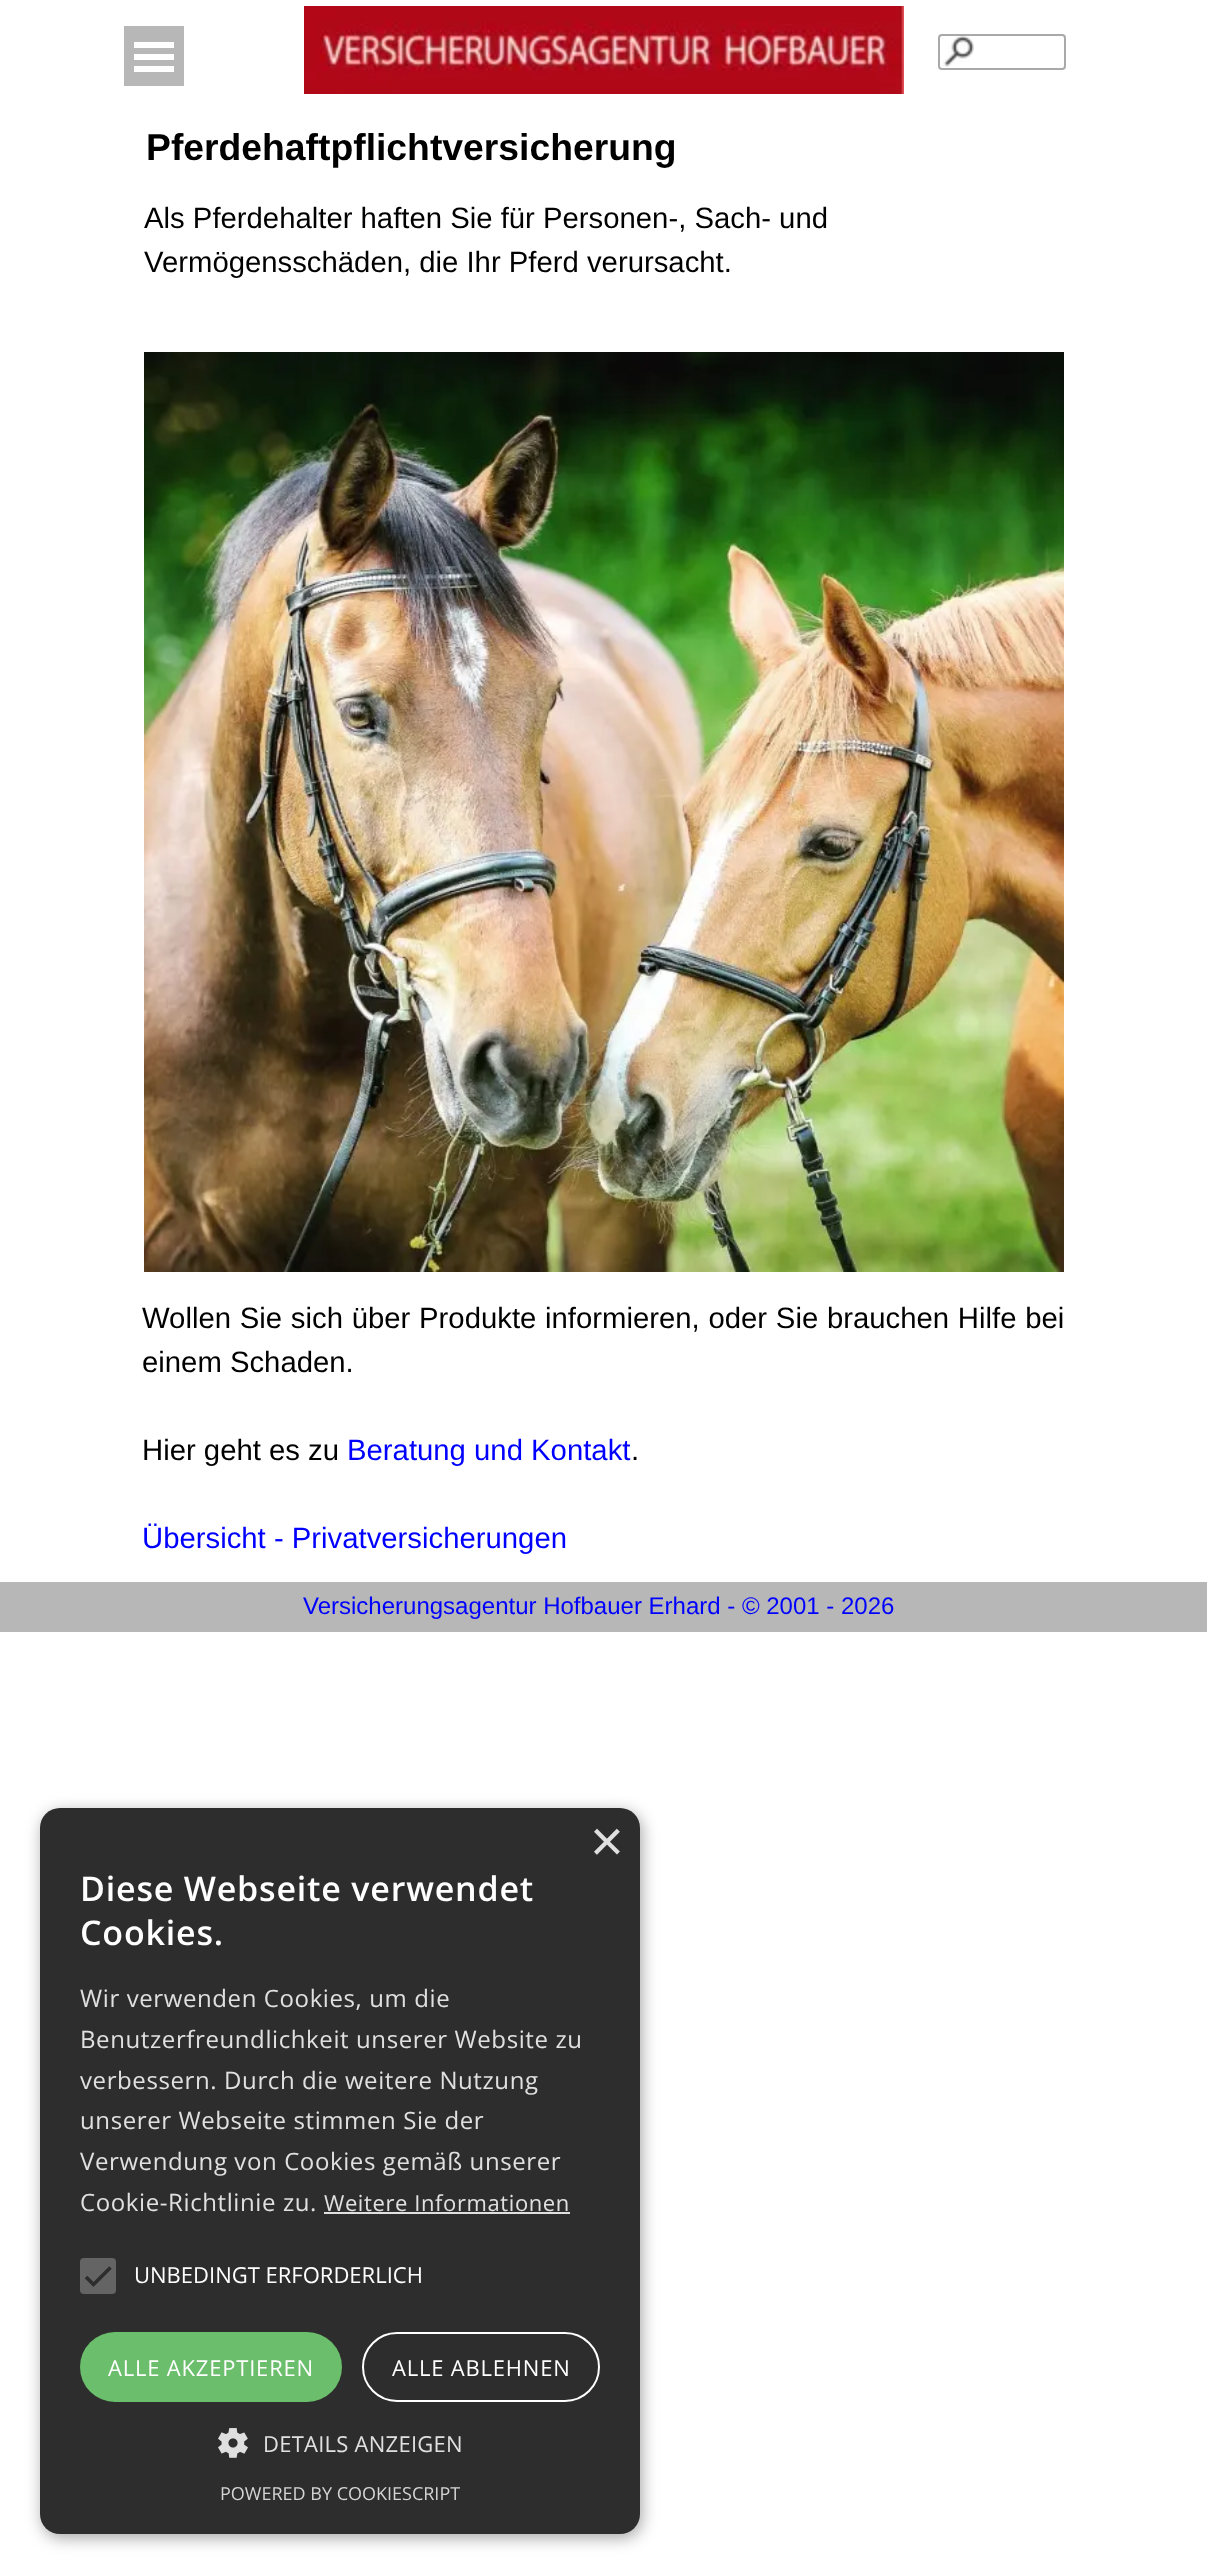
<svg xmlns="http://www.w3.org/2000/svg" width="1207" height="2574">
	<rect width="100%" height="100%" fill="#FFFFFF" />
	<rect x="124" y="26" width="60" height="60" fill="#B7B7B7" />
	<rect x="134" y="42" width="40" height="6" fill="#FFFFFF" />
	<rect x="134" y="54" width="40" height="6" fill="#FFFFFF" />
	<rect x="134" y="66" width="40" height="6" fill="#FFFFFF" />
	<image x="304" y="6" width="600" height="88" href="assets/img1.png" />
	<image x="943" y="36" width="31" height="31" href="assets/img2.png" />
	<rect x="939" y="35" width="126" height="34" rx="3" fill="none" stroke="#A9A9A9" stroke-width="2" />
	<text x="146" y="160" font-family="Liberation Sans" font-size="37.3" font-weight="700" fill="#000000">Pferdehaftpflichtversicherung</text>
	<g font-family="Liberation Sans" font-size="29.3" fill="#000000">
		<text x="144" y="228">Als Pferdehalter haften Sie für Personen-, Sach- und</text>
		<text x="144" y="272">Vermögensschäden, die Ihr Pferd verursacht.</text>
	</g>
	<image x="144" y="352" width="920" height="920" href="assets/img3.png" />
	<g font-family="Liberation Sans" font-size="29.3" fill="#000000">
		<text x="142" y="1328" word-spacing="0.6">Wollen Sie sich über Produkte informieren, oder Sie brauchen Hilfe bei</text>
		<text x="142" y="1372">einem Schaden.</text>
		<text x="142" y="1460">Hier geht es zu</text>
	</g>
	<text x="347" y="1460" font-family="Liberation Sans" font-size="29.3" fill="#0000FF">Beratung und Kontakt</text>
	<text x="631" y="1460" font-family="Liberation Sans" font-size="29.3" fill="#000000">.</text>
	<text x="142" y="1548" font-family="Liberation Sans" font-size="29.3" fill="#0000FF">Übersicht - Privatversicherungen</text>
	<rect x="0" y="1582" width="1207" height="50" fill="#B7B7B7" />
	<text x="303" y="1614" font-family="Liberation Sans" font-size="24" fill="#0000FF">Versicherungsagentur Hofbauer Erhard - © 2001 - 2026</text>
	<rect x="42" y="1812" width="600" height="726" rx="20" fill="#000000" fill-opacity="0.35" filter="blur(8px)" />
	<rect x="40" y="1808" width="600" height="726" rx="20" fill="#2D2D2D" />
	<text x="590" y="1861" font-family="Liberation Sans" font-size="58" fill="#E0E0E0">×</text>
	<g font-family="Open Sans" font-size="34" font-weight="600" letter-spacing="0.8" fill="#FFFFFF">
		<text x="80" y="1901">Diese Webseite verwendet</text>
		<text x="80" y="1945">Cookies.</text>
	</g>
	<g font-family="Open Sans" font-size="24" letter-spacing="0.6" fill="#E0E0E0">
		<text x="80" y="2007">Wir verwenden Cookies, um die</text>
		<text x="80" y="2048">Benutzerfreundlichkeit unserer Website zu</text>
		<text x="80" y="2089">verbessern. Durch die weitere Nutzung</text>
		<text x="80" y="2129">unserer Webseite stimmen Sie der</text>
		<text x="80" y="2170">Verwendung von Cookies gemäß unserer</text>
		<text x="80" y="2211">Cookie-Richtlinie zu.</text>
	</g>
	<text x="324" y="2211" font-family="Open Sans" font-size="22" letter-spacing="0.6" fill="#E0E0E0">Weitere Informationen</text>
	<rect x="324" y="2212" width="246" height="2" fill="#E0E0E0" />
	<rect x="80" y="2258" width="36" height="36" rx="4" fill="#646464" />
	<path d="M86 2277L93.5 2284.5L110.5 2267.5" fill="none" stroke="#2D2D2D" stroke-width="3.6" />
	<text x="134" y="2283" font-family="Open Sans" font-size="22" fill="#FFFFFF">UNBEDINGT ERFORDERLICH</text>
	<rect x="80" y="2332" width="262" height="70" rx="35" fill="#6BBE6B" />
	<text x="108" y="2376" font-family="Open Sans" font-size="22" letter-spacing="0.8" fill="#FFFFFF">ALLE AKZEPTIEREN</text>
	<rect x="363" y="2333" width="236" height="68" rx="34" fill="none" stroke="#FFFFFF" stroke-width="2" />
	<text x="392" y="2376" font-family="Open Sans" font-size="22" letter-spacing="0.8" fill="#FFFFFF">ALLE ABLEHNEN</text>
	<image x="218" y="2428" width="30" height="30" href="assets/img4.png" />
	<text x="263" y="2452" font-family="Open Sans" font-size="22" letter-spacing="0.25" fill="#E0E0E0">DETAILS ANZEIGEN</text>
	<text x="220" y="2500" font-family="Open Sans" font-size="18" fill="#D5D5D5">POWERED BY COOKIESCRIPT</text>
</svg>
